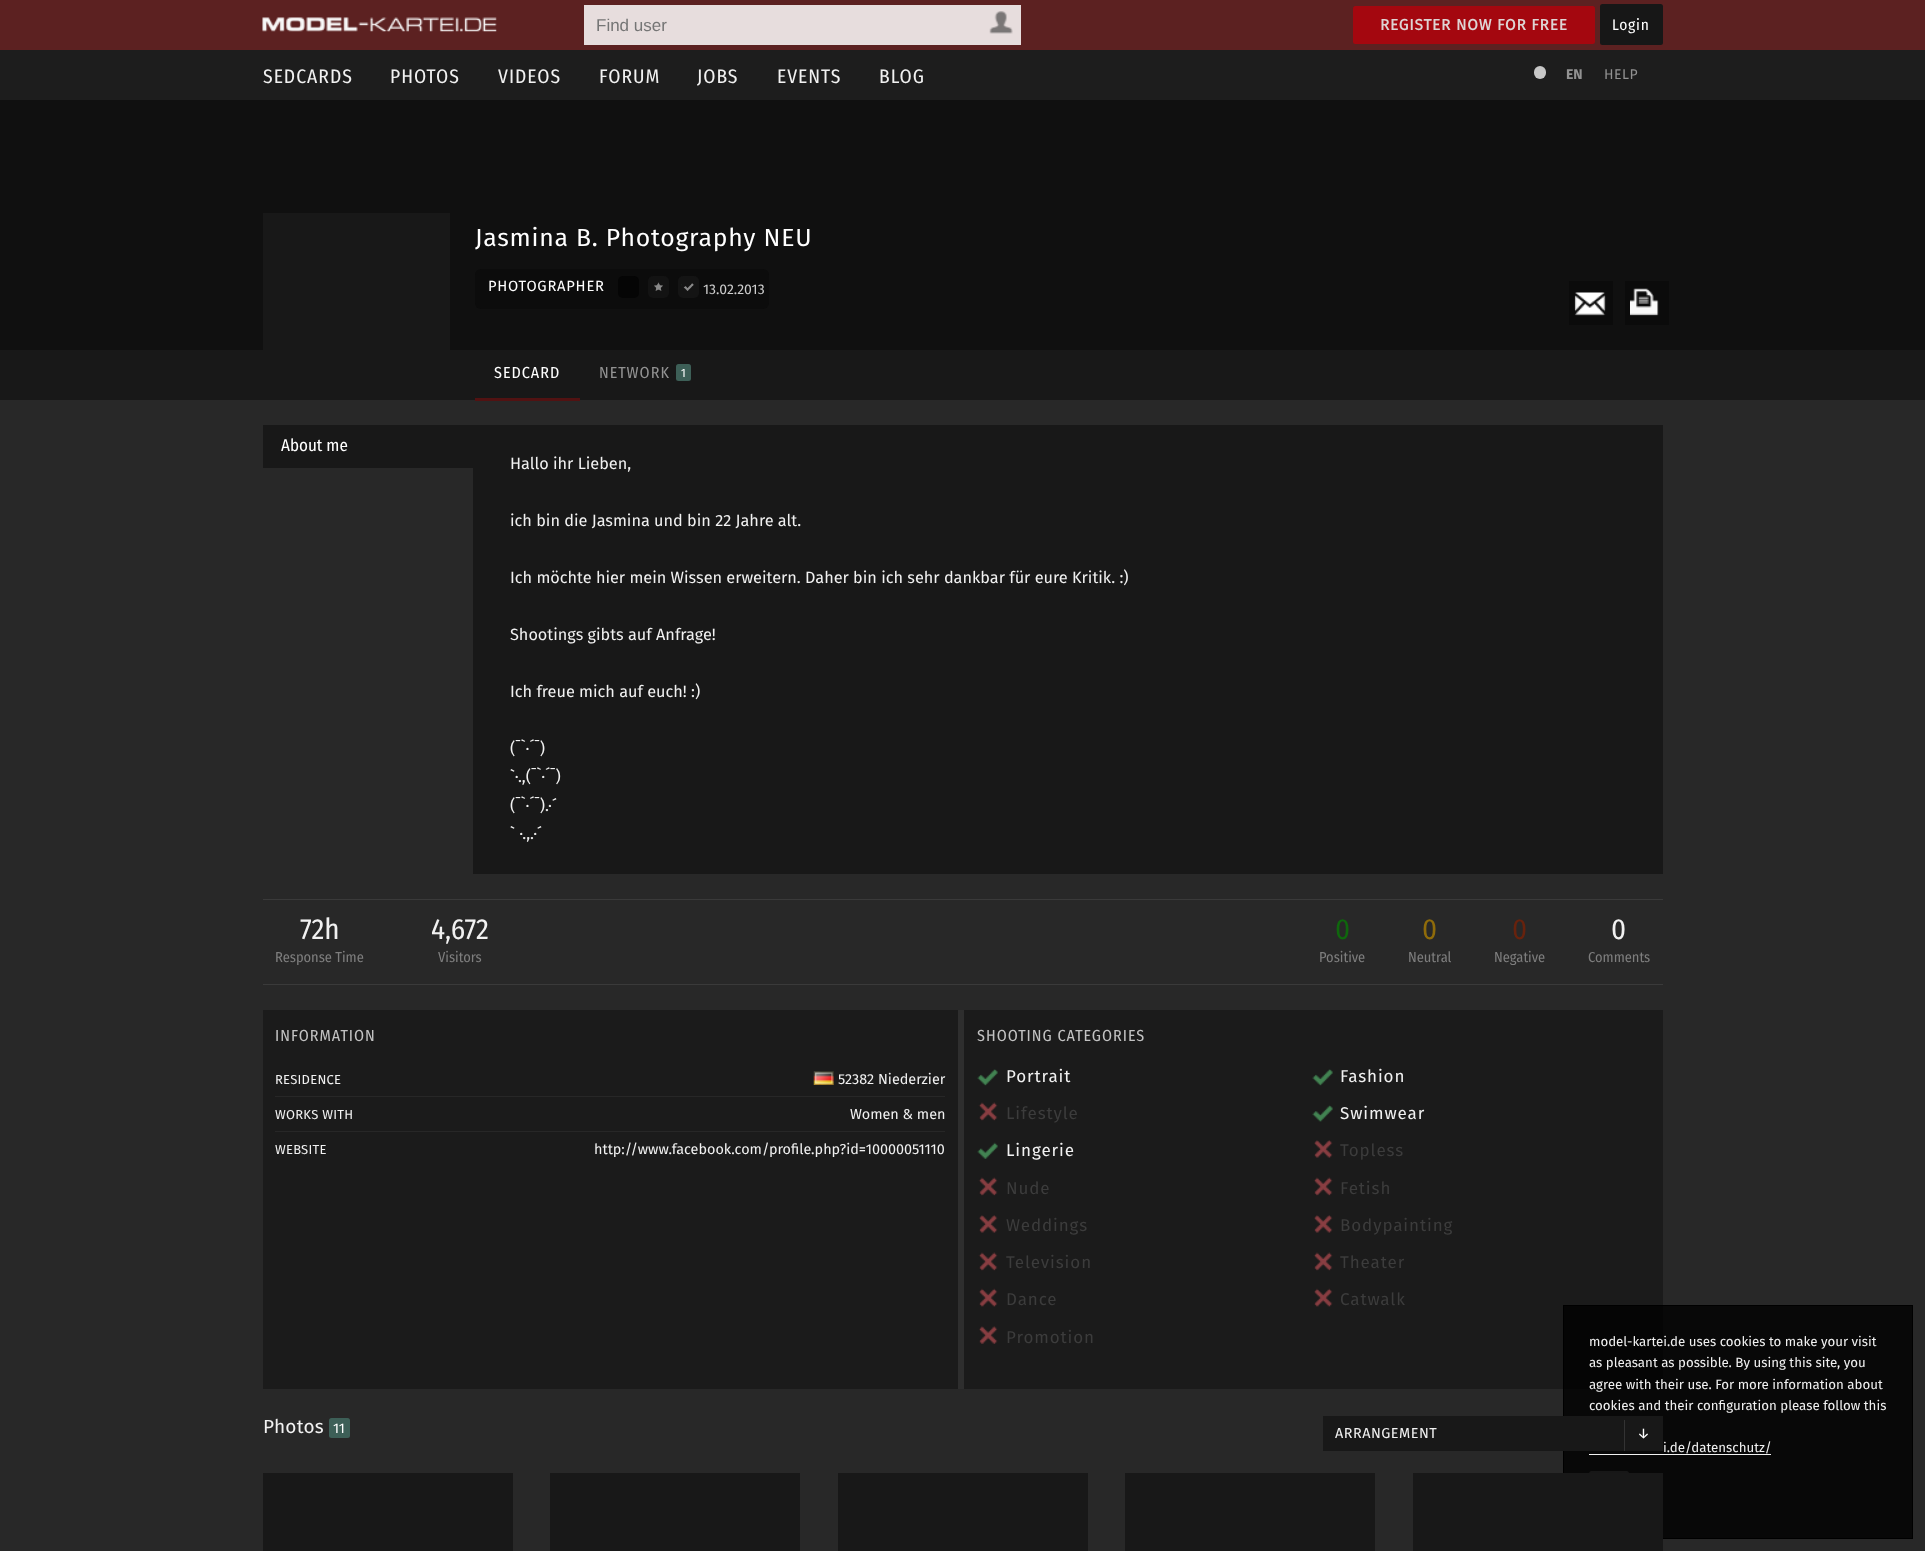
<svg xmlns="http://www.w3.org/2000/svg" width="1925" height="1551">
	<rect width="100%" height="100%" fill="#101010" />
	<rect x="0" y="0" width="1925" height="50" fill="#5C2121" />
	<image x="262" y="17" width="235" height="15" href="assets/img1.png" />
	<rect x="584" y="5" width="437" height="40" fill="#E7DDDD" />
	<text x="596" y="31" font-family="Liberation Sans" font-size="17" fill="#757575">Find user</text>
	<image x="989" y="11" width="24" height="23" href="assets/img2.png" />
	<rect x="1353" y="6" width="242" height="38" rx="2.5" fill="#A4070F" />
	<text x="1380" y="30" font-family="'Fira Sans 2'" font-size="15.4" font-weight="700" letter-spacing="0.75" fill="#DED3D3">REGISTER NOW FOR FREE</text>
	<rect x="1600" y="4" width="63" height="41" rx="2.5" fill="#171717" />
	<text x="1612" y="30" font-family="Fira Sans Condensed" font-size="15.4" letter-spacing="0.75" fill="#FFFFFF">Login</text>
	<rect x="0" y="50" width="1925" height="50" fill="#1D1D1D" />
	<g font-family="Fira Sans Condensed" font-size="19.5" letter-spacing="1" fill="#F1F1F1">
		<text x="263" y="83">SEDCARDS</text>
		<text x="390" y="83">PHOTOS</text>
		<text x="498" y="83">VIDEOS</text>
		<text x="599" y="83">FORUM</text>
		<text x="697" y="83">JOBS</text>
		<text x="777" y="83">EVENTS</text>
		<text x="879" y="83">BLOG</text>
	</g>
	<rect x="1534" y="66" width="12" height="13" rx="6" fill="#C7C7C7" />
	<text x="1566" y="79" font-family="Fira Sans" font-size="14" font-weight="700" fill="#929292">EN</text>
	<text x="1604" y="79" font-family="Fira Sans" font-size="14" letter-spacing="0.5" fill="#929292">HELP</text>
	<rect x="0" y="350" width="1925" height="50" fill="#181818" />
	<rect x="263" y="213" width="187" height="137" fill="#181818" />
	<text x="475" y="246" font-family="Fira Sans" font-size="24.75" letter-spacing="0.75" fill="#FFFFFF">Jasmina B. Photography NEU</text>
	<rect x="475" y="269" width="294" height="40" rx="6" fill="#0C0C0C" />
	<text x="488" y="291" font-family="Fira Sans" font-size="14.75" letter-spacing="0.75" fill="#FFFFFF">PHOTOGRAPHER</text>
	<rect x="618" y="276" width="21" height="22" rx="5" fill="#050505" />
	<rect x="648" y="276" width="21" height="22" rx="5" fill="#131313" />
	<image x="654" y="282" width="9" height="9" href="assets/img3.png" />
	<rect x="678" y="276" width="21" height="22" rx="5" fill="#141414" />
	<image x="681" y="283" width="13" height="8" href="assets/img4.png" />
	<text x="703" y="294" font-family="Fira Sans" font-size="14" fill="#CECECE">13.02.2013</text>
	<rect x="1569" y="281" width="44" height="44" fill="#0B0B0B" />
	<image x="1574" y="292" width="32" height="24" href="assets/img5.png" />
	<rect x="1625" y="281" width="44" height="44" fill="#0B0B0B" />
	<image x="1630" y="288" width="29" height="28" href="assets/img6.png" />
	<rect x="0" y="400" width="1925" height="1151" fill="#282828" />
	<rect x="475" y="398" width="105" height="3" fill="#521212" />
	<text x="494" y="378" font-family="Fira Sans Condensed" font-size="16" letter-spacing="1" fill="#FFFFFF">SEDCARD</text>
	<text x="599" y="378" font-family="Fira Sans Condensed" font-size="16" letter-spacing="1" fill="#929292">NETWORK</text>
	<rect x="676" y="364" width="15" height="17" rx="2.5" fill="#3D5F57" />
	<text x="681" y="377" font-family="Fira Sans Condensed" font-size="12" fill="#FFFFFF">1</text>
	<rect x="1564" y="1306" width="348" height="232" fill="#080808" />
	<rect x="263" y="425" width="210" height="43" fill="#181818" />
	<text x="281" y="451" font-family="Fira Sans Condensed" font-size="17" fill="#FFFFFF">About me</text>
	<rect x="473" y="425" width="1190" height="449" fill="#181818" />
	<g font-family="Fira Sans" font-size="16.25" fill="#F1F1F1">
		<text x="510" y="469">Hallo ihr Lieben,</text>
		<text x="510" y="526">ich bin die Jasmina und bin 22 Jahre alt.</text>
		<text x="510" y="583">Ich möchte hier mein Wissen erweitern. Daher bin ich sehr dankbar für eure Kritik. :)</text>
		<text x="510" y="640">Shootings gibts auf Anfrage!</text>
		<text x="510" y="697">Ich freue mich auf euch! :)</text>
		<text x="510" y="754">(¯`·´¯)</text>
		<text x="510" y="782">`·.,(¯`·´¯)</text>
		<text x="510" y="811">(¯`·´¯).·´</text>
		<text x="510" y="839">` ·.,.·´</text>
	</g>
	<rect x="263" y="899" width="1400" height="1" fill="#3A3A3A" />
	<rect x="263" y="984" width="1400" height="1" fill="#3A3A3A" />
	<text x="300" y="939" font-family="Fira Sans Condensed" font-size="29" fill="#F1F1F1">72h</text>
	<text x="275" y="962" font-family="Fira Sans Condensed" font-size="14.4" fill="#7E7E7E">Response Time</text>
	<text x="431" y="939" font-family="Fira Sans Condensed" font-size="29" fill="#F1F1F1">4,672</text>
	<text x="438" y="962" font-family="Fira Sans Condensed" font-size="14.4" fill="#7E7E7E">Visitors</text>
	<text x="1335" y="939" font-family="Fira Sans Condensed" font-size="29" fill="#0F670D">0</text>
	<text x="1319" y="962" font-family="Fira Sans Condensed" font-size="14.4" fill="#7E7E7E">Positive</text>
	<text x="1422" y="939" font-family="Fira Sans Condensed" font-size="29" fill="#8F6B0A">0</text>
	<text x="1408" y="962" font-family="Fira Sans Condensed" font-size="14.4" fill="#7E7E7E">Neutral</text>
	<text x="1512" y="939" font-family="Fira Sans Condensed" font-size="29" fill="#67220D">0</text>
	<text x="1494" y="962" font-family="Fira Sans Condensed" font-size="14.4" fill="#7E7E7E">Negative</text>
	<text x="1611" y="939" font-family="Fira Sans Condensed" font-size="29" fill="#F1F1F1">0</text>
	<text x="1588" y="962" font-family="Fira Sans Condensed" font-size="14.4" fill="#7E7E7E">Comments</text>
	<rect x="263" y="1010" width="695" height="379" fill="#1B1B1B" />
	<rect x="958" y="1010" width="6" height="379" fill="#2E2E2E" />
	<text x="275" y="1041" font-family="Fira Sans Condensed" font-size="16" letter-spacing="1" fill="#C2C2C2">INFORMATION</text>
	<rect x="275" y="1096" width="670" height="1" fill="#272727" />
	<text x="275" y="1084" font-family="Fira Sans" font-size="13" letter-spacing="0.25" fill="#F1F1F1">RESIDENCE</text>
	<image x="813" y="1071" width="21" height="14" href="assets/img7.png" />
	<text x="838" y="1084" font-family="Fira Sans" font-size="14.4" fill="#F1F1F1">52382 Niederzier</text>
	<rect x="275" y="1131" width="670" height="1" fill="#272727" />
	<text x="275" y="1119" font-family="Fira Sans" font-size="13" letter-spacing="0.25" fill="#F1F1F1">WORKS WITH</text>
	<text x="850" y="1119" font-family="Fira Sans" font-size="14.4" fill="#F1F1F1">Women &amp; men</text>
	<text x="275" y="1154" font-family="Fira Sans" font-size="13" letter-spacing="0.25" fill="#F1F1F1">WEBSITE</text>
	<text x="594" y="1154" font-family="Fira Sans" font-size="14.4" fill="#F1F1F1">http://www.facebook.com/profile.php?id=10000051110</text>
	<rect x="964" y="1010" width="699" height="379" fill="#1B1B1B" />
	<rect x="1564" y="1306" width="99" height="83" fill="#050505" />
	<text x="977" y="1041" font-family="Fira Sans Condensed" font-size="16" letter-spacing="1" fill="#C2C2C2">SHOOTING CATEGORIES</text>
	<image x="977" y="1069" width="21" height="17" href="assets/img8.png" />
	<text x="1006" y="1082" font-family="Fira Sans" font-size="17" letter-spacing="0.9" fill="#F1F1F1">Portrait</text>
	<image x="978" y="1102" width="20" height="19" href="assets/img9.png" />
	<text x="1006" y="1119" font-family="Fira Sans" font-size="17" letter-spacing="0.9" fill="#3C3C3C">Lifestyle</text>
	<image x="977" y="1142" width="21" height="17" href="assets/img10.png" />
	<text x="1006" y="1156" font-family="Fira Sans" font-size="17" letter-spacing="0.9" fill="#F1F1F1">Lingerie</text>
	<image x="978" y="1177" width="20" height="19" href="assets/img11.png" />
	<text x="1006" y="1194" font-family="Fira Sans" font-size="17" letter-spacing="0.9" fill="#3C3C3C">Nude</text>
	<image x="979" y="1215" width="19" height="18" href="assets/img12.png" />
	<text x="1006" y="1231" font-family="Fira Sans" font-size="17" letter-spacing="0.9" fill="#3C3C3C">Weddings</text>
	<image x="978" y="1252" width="20" height="19" href="assets/img9.png" />
	<text x="1006" y="1268" font-family="Fira Sans" font-size="17" letter-spacing="0.9" fill="#3C3C3C">Television</text>
	<image x="979" y="1288" width="19" height="19" href="assets/img13.png" />
	<text x="1006" y="1305" font-family="Fira Sans" font-size="17" letter-spacing="0.9" fill="#3C3C3C">Dance</text>
	<image x="979" y="1326" width="19" height="18" href="assets/img14.png" />
	<text x="1006" y="1343" font-family="Fira Sans" font-size="17" letter-spacing="0.9" fill="#3C3C3C">Promotion</text>
	<image x="1312" y="1069" width="21" height="17" href="assets/img8.png" />
	<text x="1340" y="1082" font-family="Fira Sans" font-size="17" letter-spacing="0.9" fill="#F1F1F1">Fashion</text>
	<image x="1312" y="1105" width="21" height="17" href="assets/img15.png" />
	<text x="1340" y="1119" font-family="Fira Sans" font-size="17" letter-spacing="0.9" fill="#F1F1F1">Swimwear</text>
	<image x="1314" y="1140" width="19" height="18" href="assets/img12.png" />
	<text x="1340" y="1156" font-family="Fira Sans" font-size="17" letter-spacing="0.9" fill="#3C3C3C">Topless</text>
	<image x="1313" y="1177" width="20" height="19" href="assets/img11.png" />
	<text x="1340" y="1194" font-family="Fira Sans" font-size="17" letter-spacing="0.9" fill="#3C3C3C">Fetish</text>
	<image x="1314" y="1215" width="19" height="18" href="assets/img12.png" />
	<text x="1340" y="1231" font-family="Fira Sans" font-size="17" letter-spacing="0.9" fill="#3C3C3C">Bodypainting</text>
	<image x="1313" y="1252" width="20" height="19" href="assets/img9.png" />
	<text x="1340" y="1268" font-family="Fira Sans" font-size="17" letter-spacing="0.9" fill="#3C3C3C">Theater</text>
	<image x="1314" y="1288" width="19" height="19" href="assets/img13.png" />
	<text x="1340" y="1305" font-family="Fira Sans" font-size="17" letter-spacing="0.9" fill="#3C3C3C">Catwalk</text>
	<text x="263" y="1433" font-family="Fira Sans" font-size="19" letter-spacing="0.25" fill="#F1F1F1">Photos</text>
	<rect x="329" y="1418" width="21" height="20" rx="2.5" fill="#3D5F57" />
	<text x="333" y="1433" font-family="Fira Sans" font-size="14" fill="#FFFFFF">11</text>
	<rect x="1563.5" y="1305.5" width="349" height="233" fill="none" stroke="#000000" />
	<rect x="1323" y="1416" width="340" height="35" fill="#181818" />
	<text x="1335" y="1438" font-family="Fira Sans" font-size="14.4" letter-spacing="0.5" fill="#F1F1F1">ARRANGEMENT</text>
	<rect x="1624" y="1420" width="1" height="31" fill="#333333" />
	<text x="1637" y="1438" font-family="Fira Sans" font-size="14.4" letter-spacing="0.5" fill="#FFFFFF">↓</text>
	<rect x="263" y="1473" width="250" height="78" fill="#181818" />
	<rect x="550" y="1473" width="250" height="78" fill="#181818" />
	<rect x="838" y="1473" width="250" height="78" fill="#181818" />
	<rect x="1125" y="1473" width="250" height="78" fill="#181818" />
	<rect x="1589" y="1471" width="40" height="42" rx="2.5" fill="#171717" />
	<rect x="1413" y="1473" width="250" height="78" fill="#181818" />
	<g font-family="Fira Sans" font-size="13.3" fill="#F1F1F1">
		<text x="1589" y="1346">model-kartei.de uses cookies to make your visit</text>
		<text x="1589" y="1367">as pleasant as possible. By using this site, you</text>
		<text x="1589" y="1389">agree with their use. For more information about</text>
		<text x="1589" y="1410">cookies and their configuration please follow this</text>
		<text x="1663" y="1452">i.de/datenschutz/</text>
	</g>
	<rect x="1589" y="1454" width="182" height="1" fill="#F1F1F1" />
</svg>
